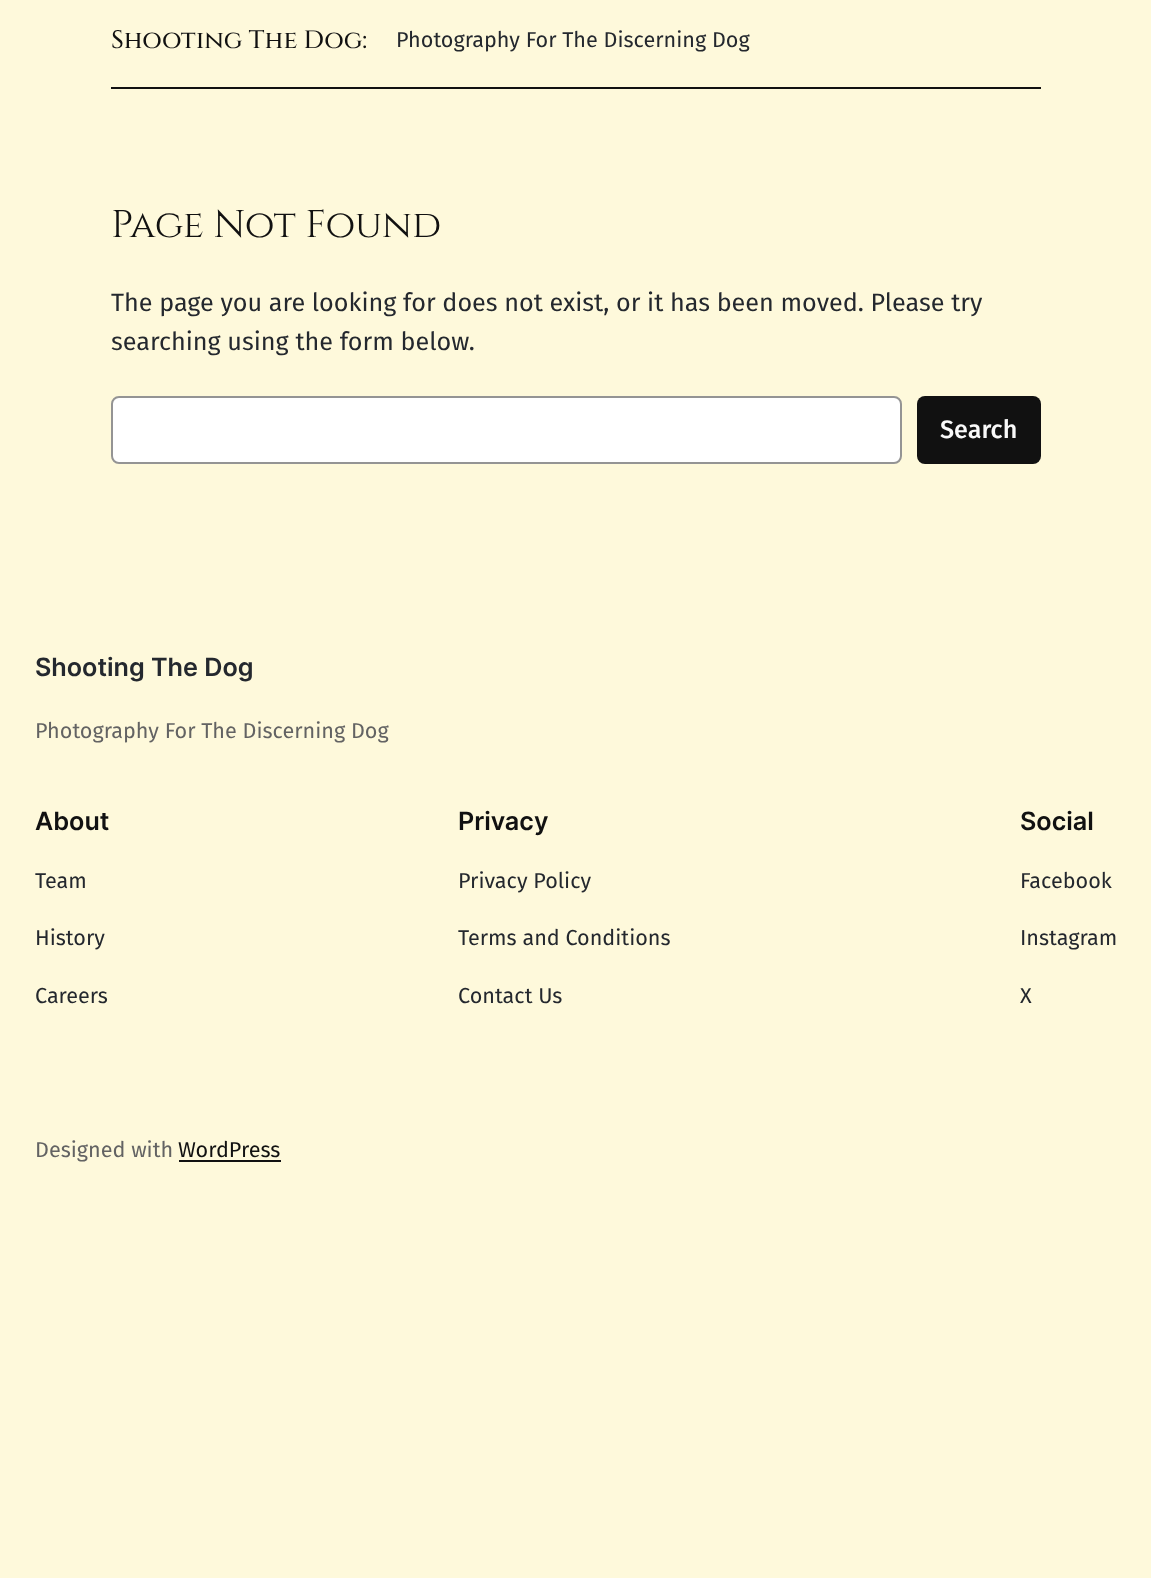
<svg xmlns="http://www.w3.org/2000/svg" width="1151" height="1578">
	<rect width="100%" height="100%" fill="#FEF9DB" />
	<text x="111" y="48" font-family="Cinzel" font-size="25.2" font-weight="500" fill="#111111">Shooting The Dog:</text>
	<text x="396" y="47" font-family="Fira Sans" font-size="21.6" fill="#24282E">Photography For The Discerning Dog</text>
	<rect x="111" y="87" width="930" height="2" fill="#111111" />
	<text x="111" y="237" font-family="Cinzel" font-size="38.5" fill="#111111">Page Not Found</text>
	<g font-family="Fira Sans" font-size="25.2" fill="#24282E">
		<text x="111" y="311">The page you are looking for does not exist, or it has been moved. Please try</text>
		<text x="111" y="350">searching using the form below.</text>
	</g>
	<rect x="112" y="397" width="789" height="66" rx="7" fill="#FFFFFF" stroke="#949494" stroke-width="2" />
	<rect x="917" y="396" width="124" height="68" rx="8" fill="#111111" />
	<text x="940" y="438" font-family="Fira Sans" font-size="25.2" font-weight="500" fill="#F9F9F9">Search</text>
	<text x="35" y="676" font-family="Inter" font-size="25.2" font-weight="600" fill="#24282E">Shooting The Dog</text>
	<text x="35" y="738" font-family="Fira Sans" font-size="21.6" fill="#636363">Photography For The Discerning Dog</text>
	<text x="35" y="830" font-family="Inter" font-size="25.2" font-weight="600" fill="#111111">About</text>
	<g font-family="Fira Sans" font-size="21.6" fill="#24282E">
		<text x="35" y="888">Team</text>
		<text x="35" y="945">History</text>
		<text x="35" y="1003">Careers</text>
	</g>
	<text x="458" y="830" font-family="Inter" font-size="25.2" font-weight="600" fill="#111111">Privacy</text>
	<g font-family="Fira Sans" font-size="21.6" fill="#24282E">
		<text x="458" y="888">Privacy Policy</text>
		<text x="458" y="945">Terms and Conditions</text>
		<text x="458" y="1003">Contact Us</text>
	</g>
	<text x="1020" y="830" font-family="Inter" font-size="25.2" font-weight="600" fill="#111111">Social</text>
	<g font-family="Fira Sans" font-size="21.6" fill="#24282E">
		<text x="1020" y="888">Facebook</text>
		<text x="1020" y="945">Instagram</text>
		<text x="1020" y="1003">X</text>
	</g>
	<text x="35" y="1157" font-family="Fira Sans" font-size="21.6" fill="#636363">Designed with</text>
	<text x="178" y="1157" font-family="Fira Sans" font-size="21.6" fill="#111111">WordPress</text>
	<rect x="179" y="1160" width="102" height="2" fill="#111111" />
</svg>
